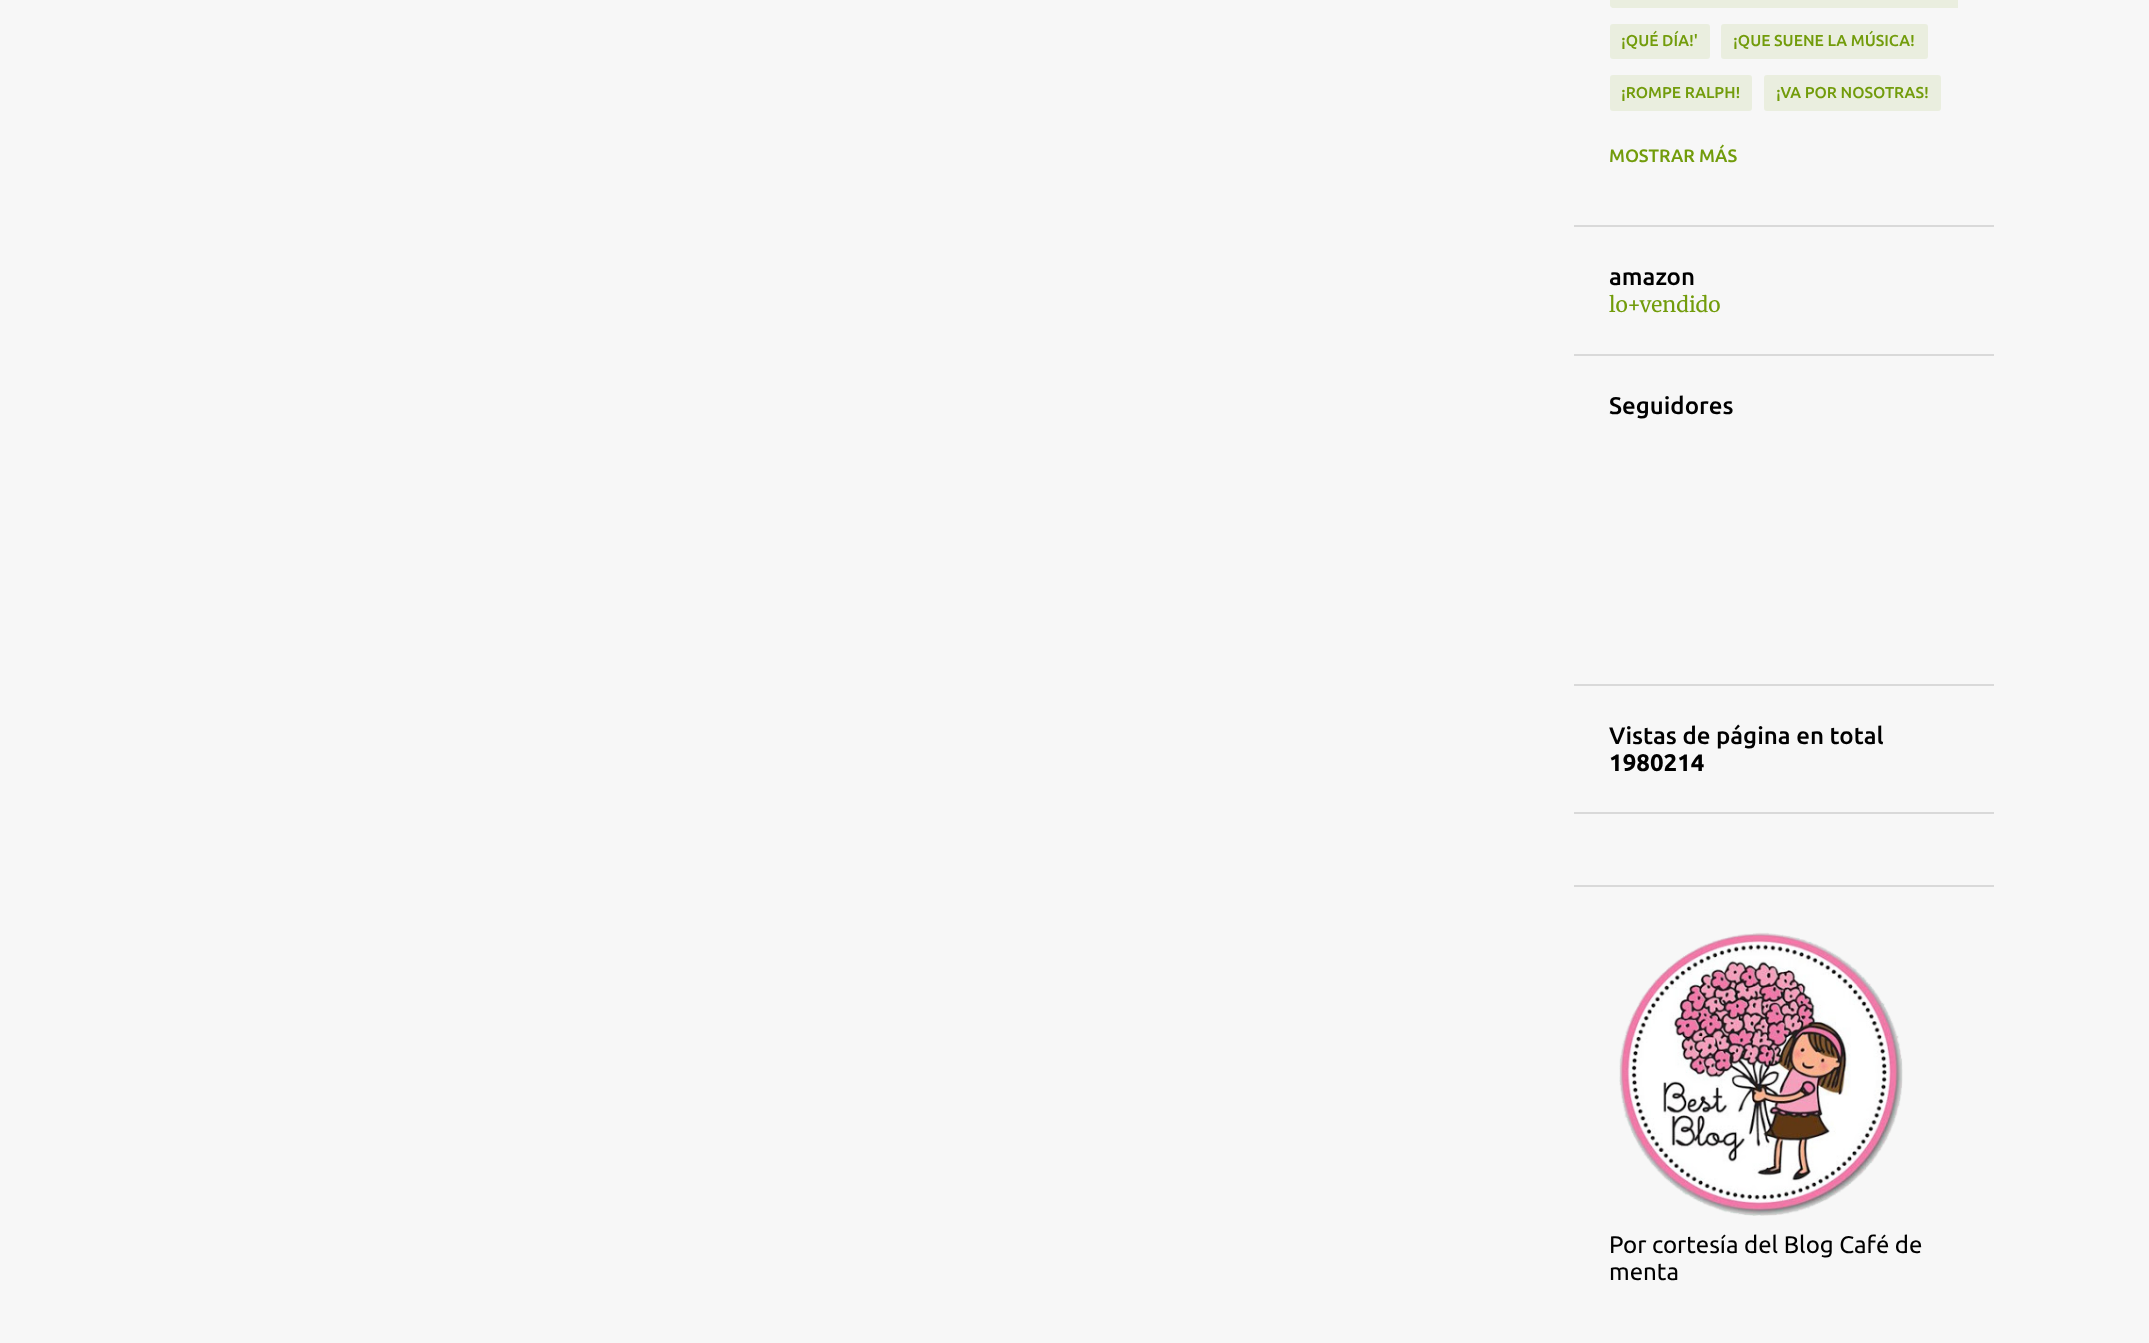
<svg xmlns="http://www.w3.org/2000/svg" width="2149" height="1343">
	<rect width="100%" height="100%" fill="#F7F7F7" />
	<path d="M1613-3H1958V8H1613C1611.5 8 1610 6.5 1610 5V0C1610-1.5 1611.5-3 1613-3Z" fill="#EAEEDF" />
	<rect x="1610" y="24" width="100" height="35" rx="3" fill="#EAEEDF" />
	<text x="1621" y="46" font-family="Ubuntu" font-size="15.75" font-weight="500" fill="#729C0B">¡QUÉ DÍA!'</text>
	<rect x="1721" y="24" width="207" height="35" rx="3" fill="#EAEEDF" />
	<text x="1733" y="46" font-family="Ubuntu" font-size="15.75" font-weight="500" fill="#729C0B">¡QUE SUENE LA MÚSICA!</text>
	<rect x="1610" y="75" width="142" height="36" rx="3" fill="#EAEEDF" />
	<text x="1621" y="98" font-family="Ubuntu" font-size="15.75" font-weight="500" fill="#729C0B">¡ROMPE RALPH!</text>
	<rect x="1764" y="75" width="177" height="36" rx="3" fill="#EAEEDF" />
	<text x="1776" y="98" font-family="Ubuntu" font-size="15.75" font-weight="500" fill="#729C0B">¡VA POR NOSOTRAS!</text>
	<text x="1609" y="162" font-family="Ubuntu" font-size="18" font-weight="500" fill="#729C0B">MOSTRAR MÁS</text>
	<rect x="1574" y="225" width="420" height="2" fill="#D9D9D9" />
	<text x="1609" y="285" font-family="Ubuntu" font-size="24" font-weight="500" fill="#000000">amazon</text>
	<text x="1609" y="312" font-family="Merriweather" font-size="21" font-weight="300" fill="#729C0B">lo+vendido</text>
	<rect x="1574" y="354" width="420" height="2" fill="#D9D9D9" />
	<text x="1609" y="414" font-family="Ubuntu" font-size="24" font-weight="500" fill="#000000">Seguidores</text>
	<rect x="1574" y="684" width="420" height="2" fill="#D9D9D9" />
	<text x="1609" y="744" font-family="Ubuntu" font-size="24" font-weight="500" fill="#000000">Vistas de página en total</text>
	<text x="1609" y="771" font-family="Ubuntu" font-size="24" font-weight="700" fill="#000000">1980214</text>
	<rect x="1574" y="812" width="420" height="2" fill="#D9D9D9" />
	<rect x="1574" y="885" width="420" height="2" fill="#D9D9D9" />
	<image x="1619" y="932" width="284" height="284" href="assets/img1.png" />
	<g font-family="Ubuntu" font-size="24" fill="#000000">
		<text x="1609" y="1253">Por cortesía del Blog Café de</text>
		<text x="1609" y="1280">menta</text>
	</g>
</svg>
